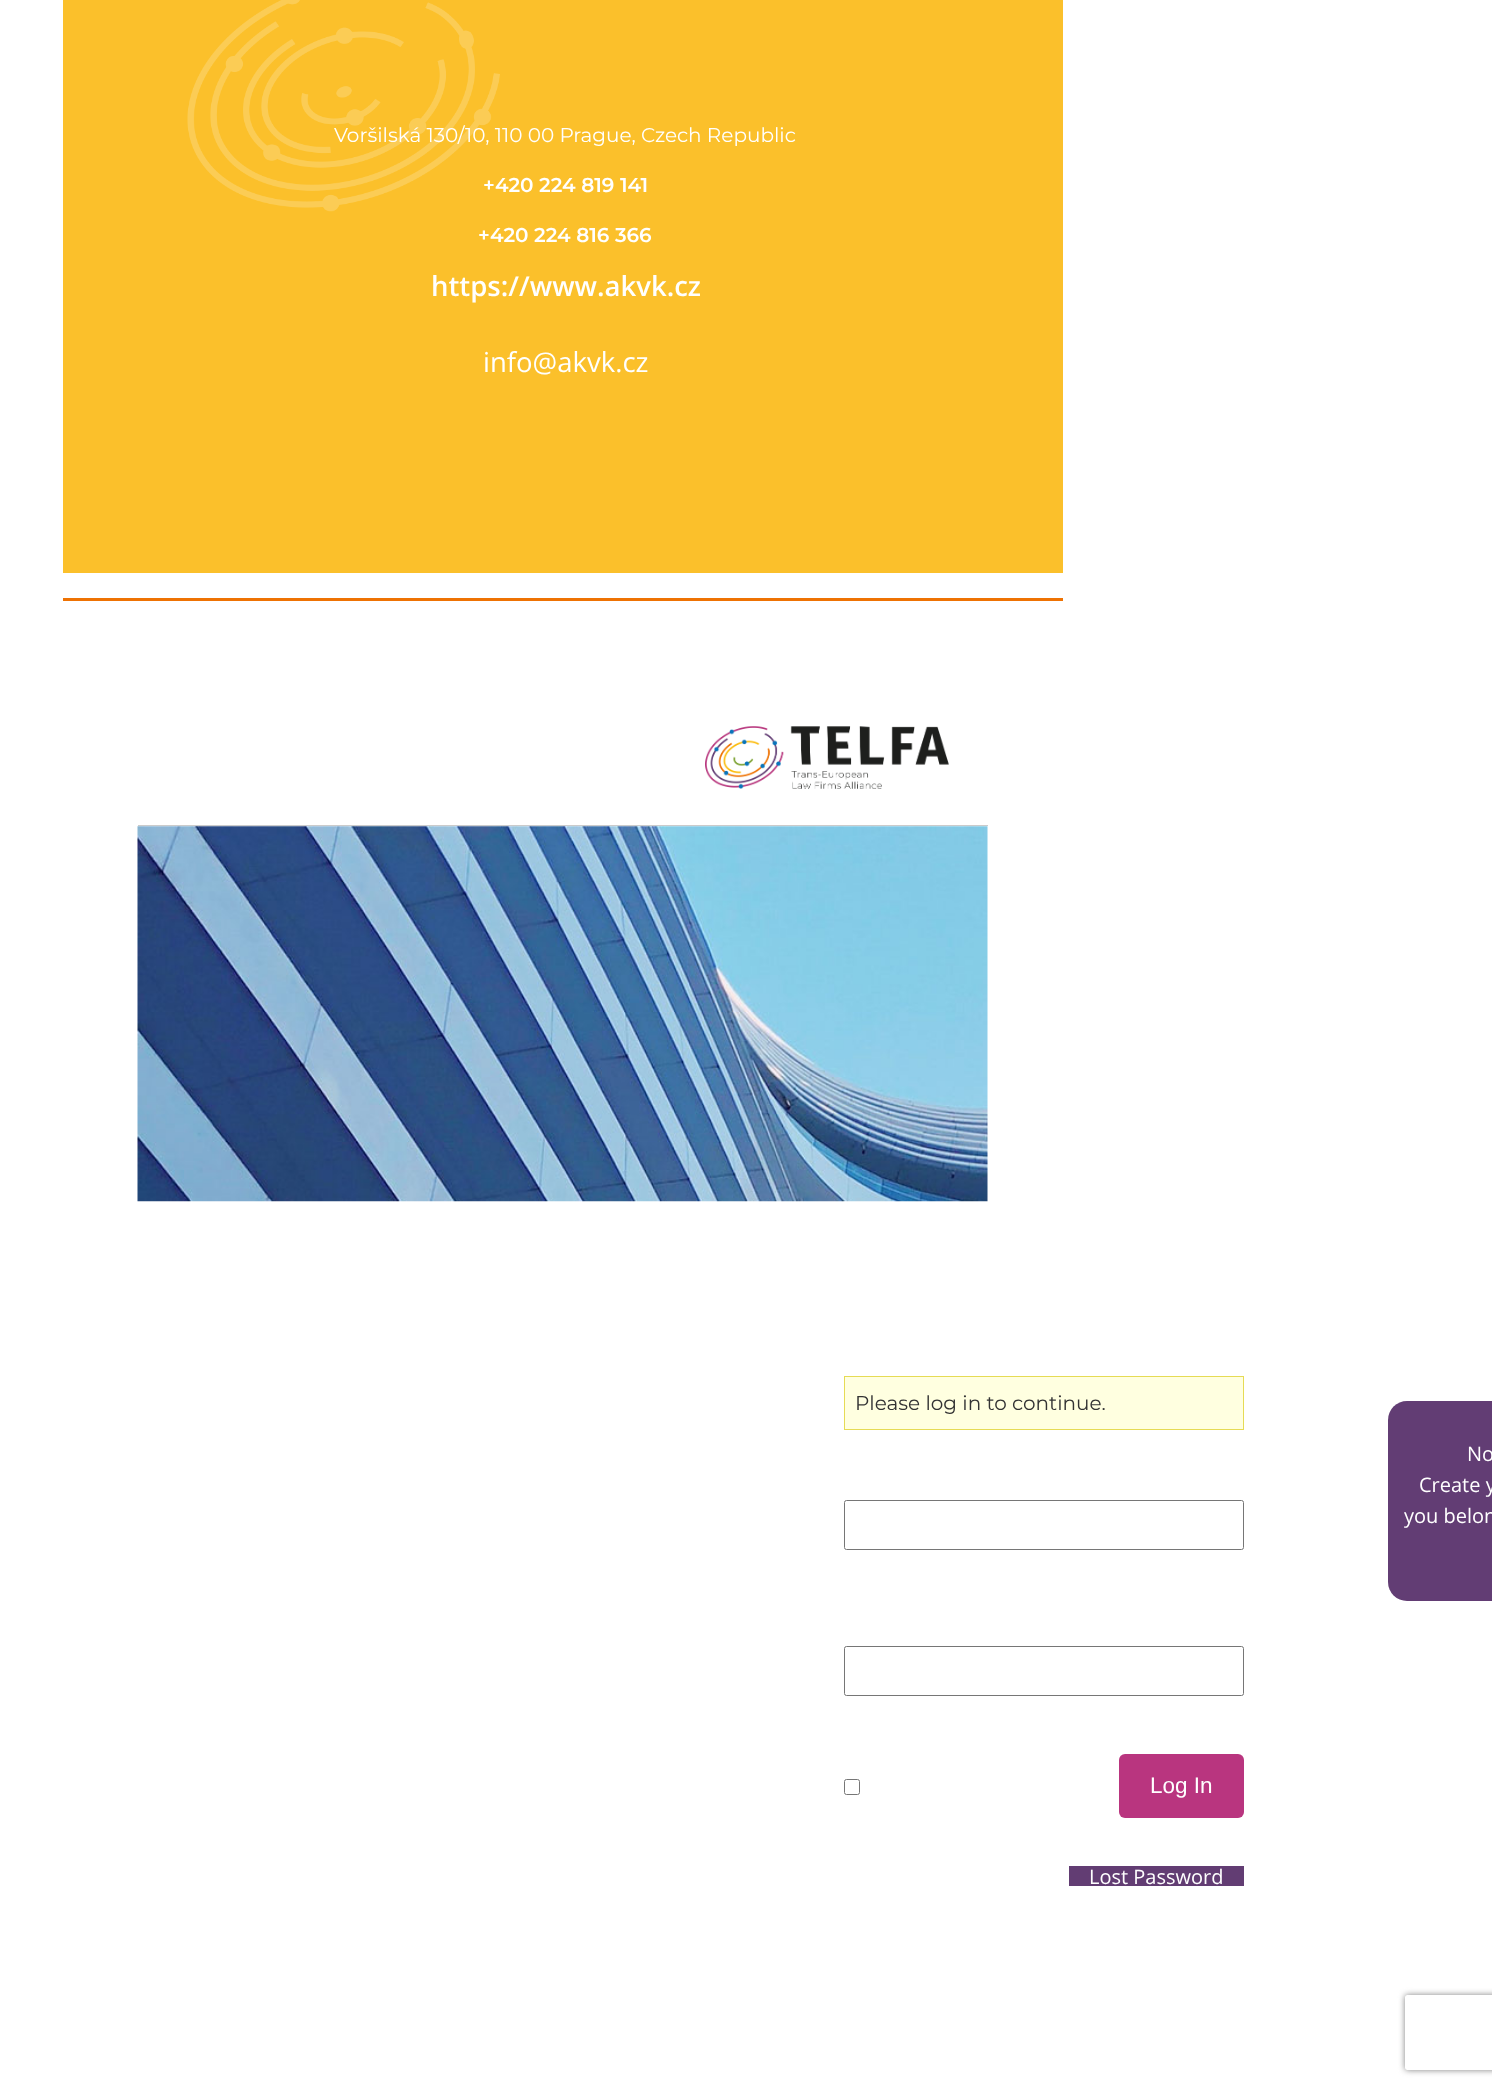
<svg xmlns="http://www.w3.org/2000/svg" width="1492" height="2087">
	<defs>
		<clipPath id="clip1"><path d="M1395 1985H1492V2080H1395ZM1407.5 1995H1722.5C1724 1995 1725 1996 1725 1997.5V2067.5C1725 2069 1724 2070 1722.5 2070H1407.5C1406 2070 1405 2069 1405 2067.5V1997.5C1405 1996 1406 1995 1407.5 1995Z" clip-rule="evenodd" /></clipPath>
	</defs>
	<rect width="100%" height="100%" fill="#FFFFFF" />
	<rect x="63" y="0" width="1000" height="573" fill="#FBC02B" />
	<image x="187" y="0" width="313" height="212" href="assets/img1.png" />
	<text x="334" y="142" font-family="Montserrat" font-size="20" fill="#FFFFFF">Voršilská 130/10, 110 00 Prague, Czech Republic</text>
	<g font-family="Montserrat" font-size="20" font-weight="600" fill="#FFFFFF">
		<text x="483" y="192">+420 224 819 141</text>
		<text x="478" y="242">+420 224 816 366</text>
	</g>
	<text x="431" y="296" font-family="Open Sans" font-size="27.5" font-weight="600" fill="#FFFFFF">https://www.akvk.cz</text>
	<text x="483" y="372" font-family="Open Sans" font-size="27.5" fill="#FFFFFF">info@akvk.cz</text>
	<rect x="63" y="598" width="1000" height="3" fill="#EE7203" />
	<rect x="138" y="825" width="850" height="1" fill="#CBCBCB" />
	<image x="705" y="726" width="244" height="63" href="assets/img2.png" />
	<image x="137" y="826" width="851" height="376" href="assets/img3.png" />
	<rect x="844.5" y="1376.5" width="399" height="53" fill="#FFFFE0" stroke="#E6DB55" />
	<text x="855" y="1410" font-family="Montserrat" font-size="20" fill="#333333">Please log in to continue.</text>
	<rect x="844.5" y="1500.5" width="399" height="49" rx="2" fill="none" stroke="#767676" />
	<rect x="844.5" y="1646.5" width="399" height="49" rx="2" fill="none" stroke="#767676" />
	<rect x="844.5" y="1779.5" width="15" height="15" rx="2" fill="none" stroke="#767676" />
	<rect x="1119" y="1754" width="125" height="64" rx="6" fill="#B9357F" />
	<text x="1150" y="1793" font-family="Liberation Sans" font-size="22.5" fill="#FFFFFF">Log In</text>
	<rect x="1069" y="1866" width="175" height="20" fill="#623D73" />
	<text x="1089" y="1884" font-family="Open Sans" font-size="20" fill="#FFFFFF">Lost Password</text>
	<rect x="1388" y="1401" width="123" height="200" rx="19" fill="#623D74" />
	<g font-family="Open Sans" font-size="20" fill="#FFFFFF">
		<text x="1467" y="1461">No</text>
		<text x="1419" y="1492">Create y</text>
		<text x="1404" y="1523">you belon</text>
	</g>
	<g clip-path="url(#clip1)">
		<rect x="1405" y="1995" width="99" height="75" rx="2.5" fill="#808080" filter="blur(3px)" />
	</g>
</svg>
